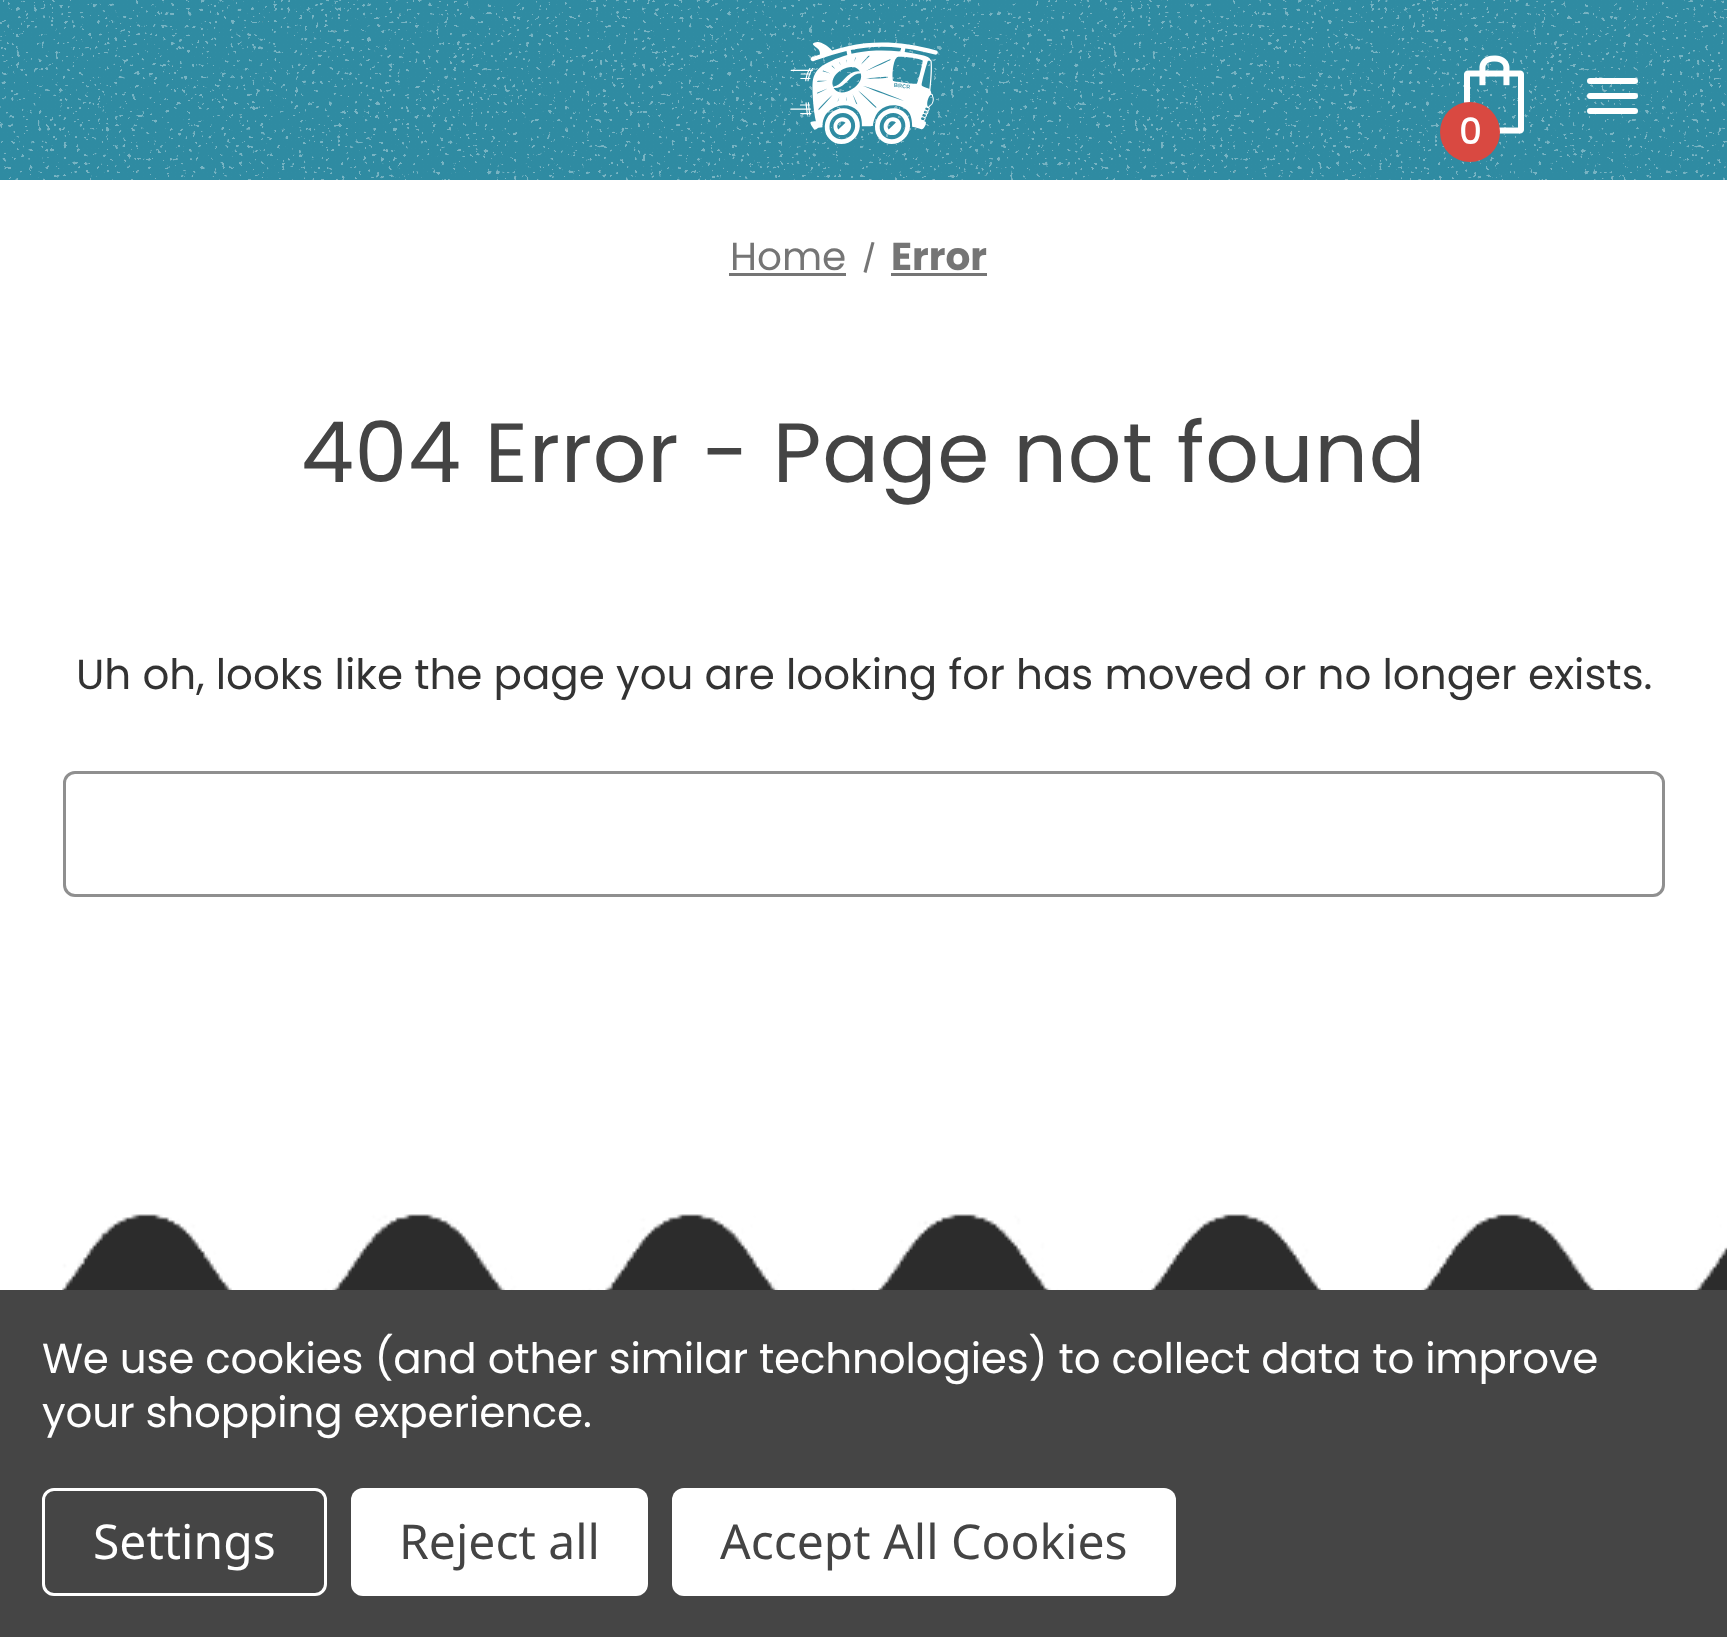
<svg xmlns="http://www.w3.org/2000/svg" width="1727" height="1637">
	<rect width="100%" height="100%" fill="#FFFFFF" />
	<image x="0" y="0" width="1727" height="180" href="assets/img1.png" />
	<image x="790" y="42" width="148" height="102" href="assets/img2.png" />
	<rect x="1587" y="93" width="51" height="6" rx="3" fill="#FFFFFF" />
	<rect x="1587" y="78" width="51" height="6" rx="3" fill="#FFFFFF" />
	<rect x="1587" y="108" width="51" height="6" rx="3" fill="#FFFFFF" />
	<image x="1464" y="55" width="60" height="79" href="assets/img3.png" />
	<circle cx="1470" cy="132" r="30" fill="#D94941" />
	<text x="1459" y="144" font-family="Poppins" font-size="36" font-weight="500" fill="#FFFFFF">0</text>
	<text x="730" y="270" font-family="Poppins" font-size="39" fill="#757575">Home</text>
	<rect x="729" y="273" width="117" height="3" fill="#757575" />
	<path d="M871.5 242L874.5 242.5L866.5 273L863.5 272Z" fill="#757575" />
	<text x="891" y="270" font-family="Poppins" font-size="39" font-weight="700" fill="#757575">Error</text>
	<rect x="891" y="273" width="96" height="3" fill="#757575" />
	<text x="301" y="482" font-family="Poppins" font-size="84" letter-spacing="0.75" fill="#444444">404 Error - Page not found</text>
	<text x="76" y="689" font-family="Poppins" font-size="42" fill="#333333">Uh oh, looks like the page you are looking for has moved or no longer exists.</text>
	<rect x="64.5" y="772.5" width="1599" height="123" rx="10.5" fill="none" stroke="#8F8F8F" stroke-width="3" />
	<image x="62" y="1214" width="1665" height="76" href="assets/img4.png" />
	<rect x="0" y="1290" width="1727" height="347" fill="#454545" />
	<g font-family="Poppins" font-size="42" letter-spacing="-0.15" fill="#FFFFFF">
		<text x="42" y="1373">We use cookies (and other similar technologies) to collect data to improve</text>
		<text x="42" y="1427">your shopping experience.</text>
	</g>
	<rect x="43.5" y="1489.5" width="282" height="105" rx="10.5" fill="none" stroke="#FFFFFF" stroke-width="3" />
	<text x="93" y="1559" font-family="Noto Sans" font-size="48" fill="#FFFFFF">Settings</text>
	<rect x="351" y="1488" width="297" height="108" rx="12" fill="#FFFFFF" />
	<text x="399" y="1559" font-family="Noto Sans" font-size="48" fill="#444444">Reject all</text>
	<rect x="672" y="1488" width="504" height="108" rx="12" fill="#FFFFFF" />
	<text x="720" y="1559" font-family="Noto Sans" font-size="48" fill="#444444">Accept All Cookies</text>
</svg>
